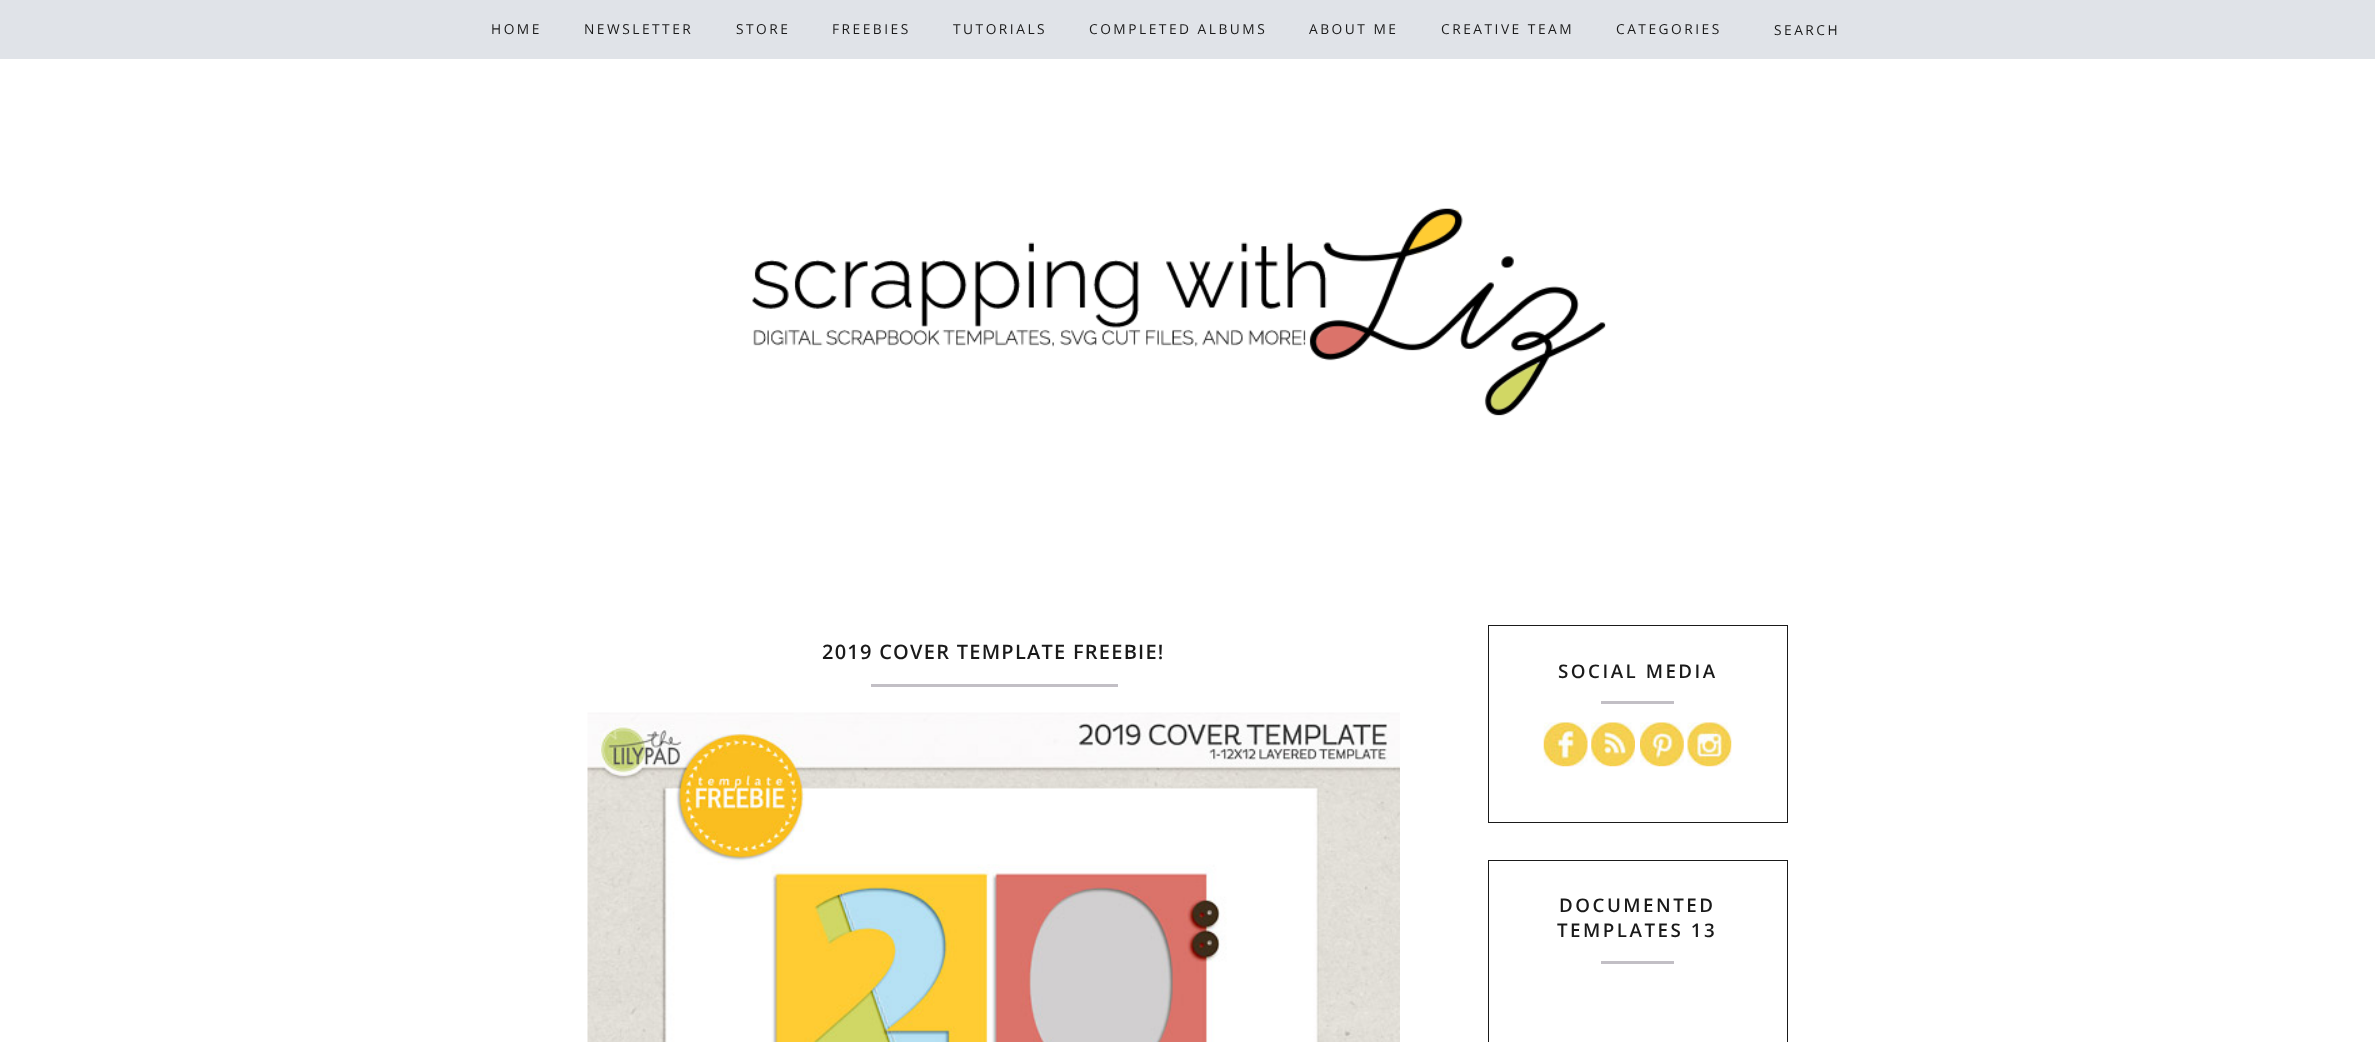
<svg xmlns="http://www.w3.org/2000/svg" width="2375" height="1042">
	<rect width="100%" height="100%" fill="#FFFFFF" />
	<rect x="0" y="0" width="2375" height="59" fill="#E0E3E8" />
	<g font-family="Open Sans" font-size="13.75" letter-spacing="2.5" fill="#1A1A1A">
		<text x="491" y="34">HOME</text>
		<text x="584" y="34">NEWSLETTER</text>
		<text x="736" y="34">STORE</text>
		<text x="832" y="34">FREEBIES</text>
		<text x="953" y="34">TUTORIALS</text>
		<text x="1089" y="34">COMPLETED ALBUMS</text>
		<text x="1309" y="34">ABOUT ME</text>
		<text x="1441" y="34">CREATIVE TEAM</text>
		<text x="1616" y="34">CATEGORIES</text>
		<text x="1774" y="35">SEARCH</text>
	</g>
	<image x="752" y="208" width="854" height="208" href="assets/img1.png" />
	<text x="822" y="659" font-family="Open Sans" font-size="20" font-weight="600" letter-spacing="1.25" fill="#1A1A1A">2019 COVER TEMPLATE FREEBIE!</text>
	<rect x="871" y="684" width="247" height="3" fill="#C2BFC5" />
	<image x="587" y="712" width="813" height="330" href="assets/img2.png" />
	<rect x="1488.5" y="625.5" width="299" height="197" fill="none" stroke="#1A1A1A" />
	<text x="1558" y="678" font-family="Open Sans" font-size="18.75" font-weight="600" letter-spacing="2.5" fill="#1A1A1A">SOCIAL MEDIA</text>
	<rect x="1601" y="701" width="73" height="3" fill="#C2BFC5" />
	<image x="1543" y="722" width="45" height="45" href="assets/img3.png" />
	<image x="1591" y="722" width="44" height="45" href="assets/img4.png" />
	<image x="1640" y="722" width="44" height="45" href="assets/img5.png" />
	<image x="1687" y="722" width="45" height="45" href="assets/img6.png" />
	<rect x="1488.5" y="860.5" width="299" height="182" fill="none" stroke="#1A1A1A" />
	<g font-family="Open Sans" font-size="18.75" font-weight="600" letter-spacing="2.5" fill="#1A1A1A">
		<text x="1559" y="912">DOCUMENTED</text>
		<text x="1557" y="937">TEMPLATES 13</text>
	</g>
	<rect x="1601" y="961" width="73" height="3" fill="#C2BFC5" />
</svg>
